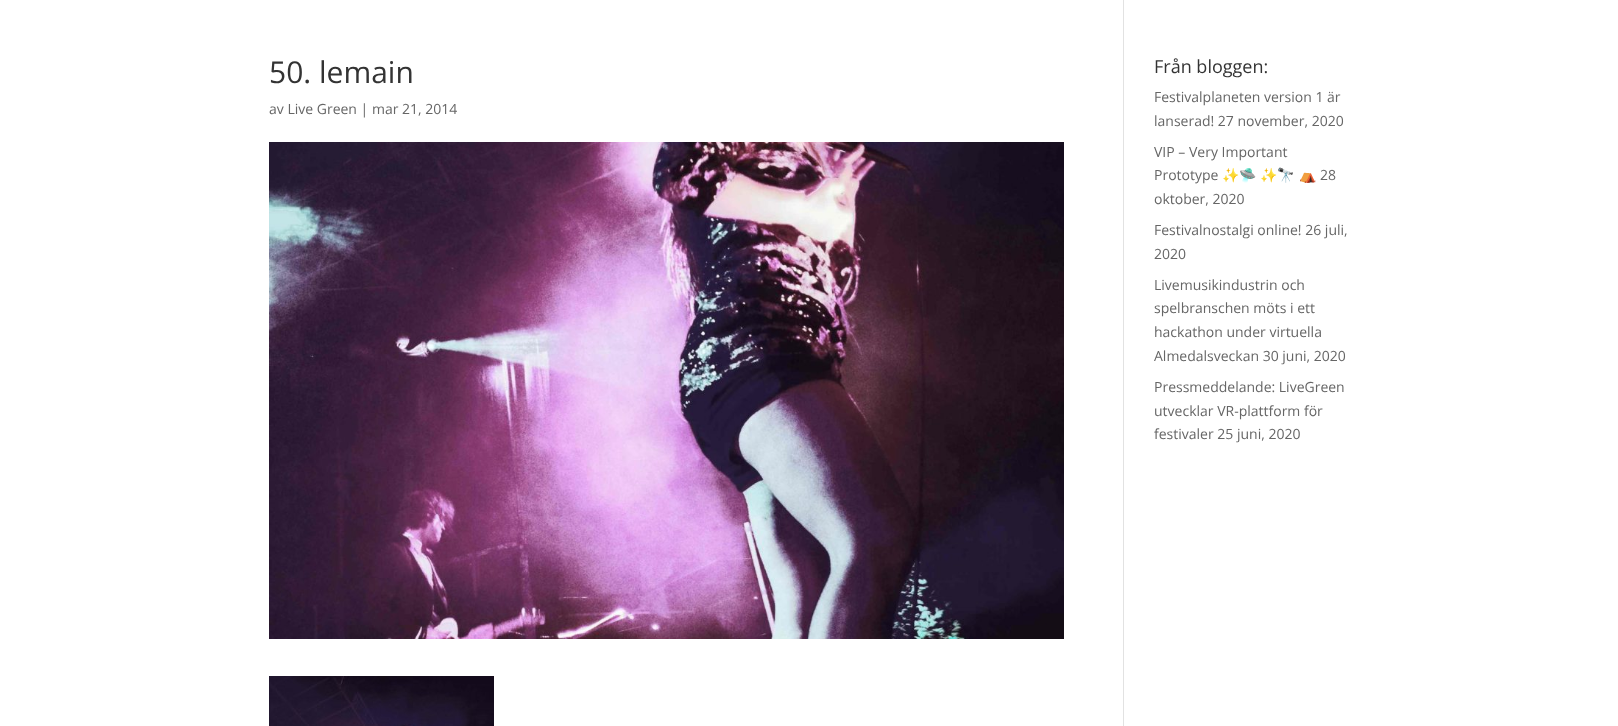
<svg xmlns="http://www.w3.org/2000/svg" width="1618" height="726">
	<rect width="100%" height="100%" fill="#FFFFFF" />
	<rect x="1123" y="0" width="1" height="726" fill="#E2E2E2" />
	<text x="269" y="83" font-family="Open Sans" font-size="30" fill="#333333">50. lemain</text>
	<text x="269" y="114" font-family="Open Sans" font-size="14" fill="#666666">av Live Green | mar 21, 2014</text>
	<image x="269" y="142" width="795" height="497" href="assets/img1.png" />
	<image x="269" y="676" width="225" height="50" href="assets/img2.png" />
	<text x="1154" y="73" font-family="Open Sans" font-size="18" fill="#333333">Från bloggen:</text>
	<g font-family="Open Sans" font-size="14" fill="#666666">
		<text x="1154" y="102">Festivalplaneten version 1 är</text>
		<text x="1154" y="126">lanserad! 27 november, 2020</text>
		<text x="1154" y="157">VIP – Very Important</text>
		<text x="1154" y="180">Prototype</text>
	</g>
	<g font-family="Noto Color Emoji" font-size="14" fill="#666666">
		<text x="1222" y="180">✨🛸</text>
		<text x="1260" y="180">✨🔭</text>
		<text x="1299" y="180">⛺️</text>
	</g>
	<g font-family="Open Sans" font-size="14" fill="#666666">
		<text x="1320" y="180">28</text>
		<text x="1154" y="204">oktober, 2020</text>
		<text x="1154" y="235">Festivalnostalgi online! 26 juli,</text>
		<text x="1154" y="259">2020</text>
		<text x="1154" y="290">Livemusikindustrin och</text>
		<text x="1154" y="313">spelbranschen möts i ett</text>
		<text x="1154" y="337">hackathon under virtuella</text>
		<text x="1154" y="361">Almedalsveckan 30 juni, 2020</text>
		<text x="1154" y="392">Pressmeddelande: LiveGreen</text>
		<text x="1154" y="416">utvecklar VR-plattform för</text>
		<text x="1154" y="439">festivaler 25 juni, 2020</text>
	</g>
</svg>
